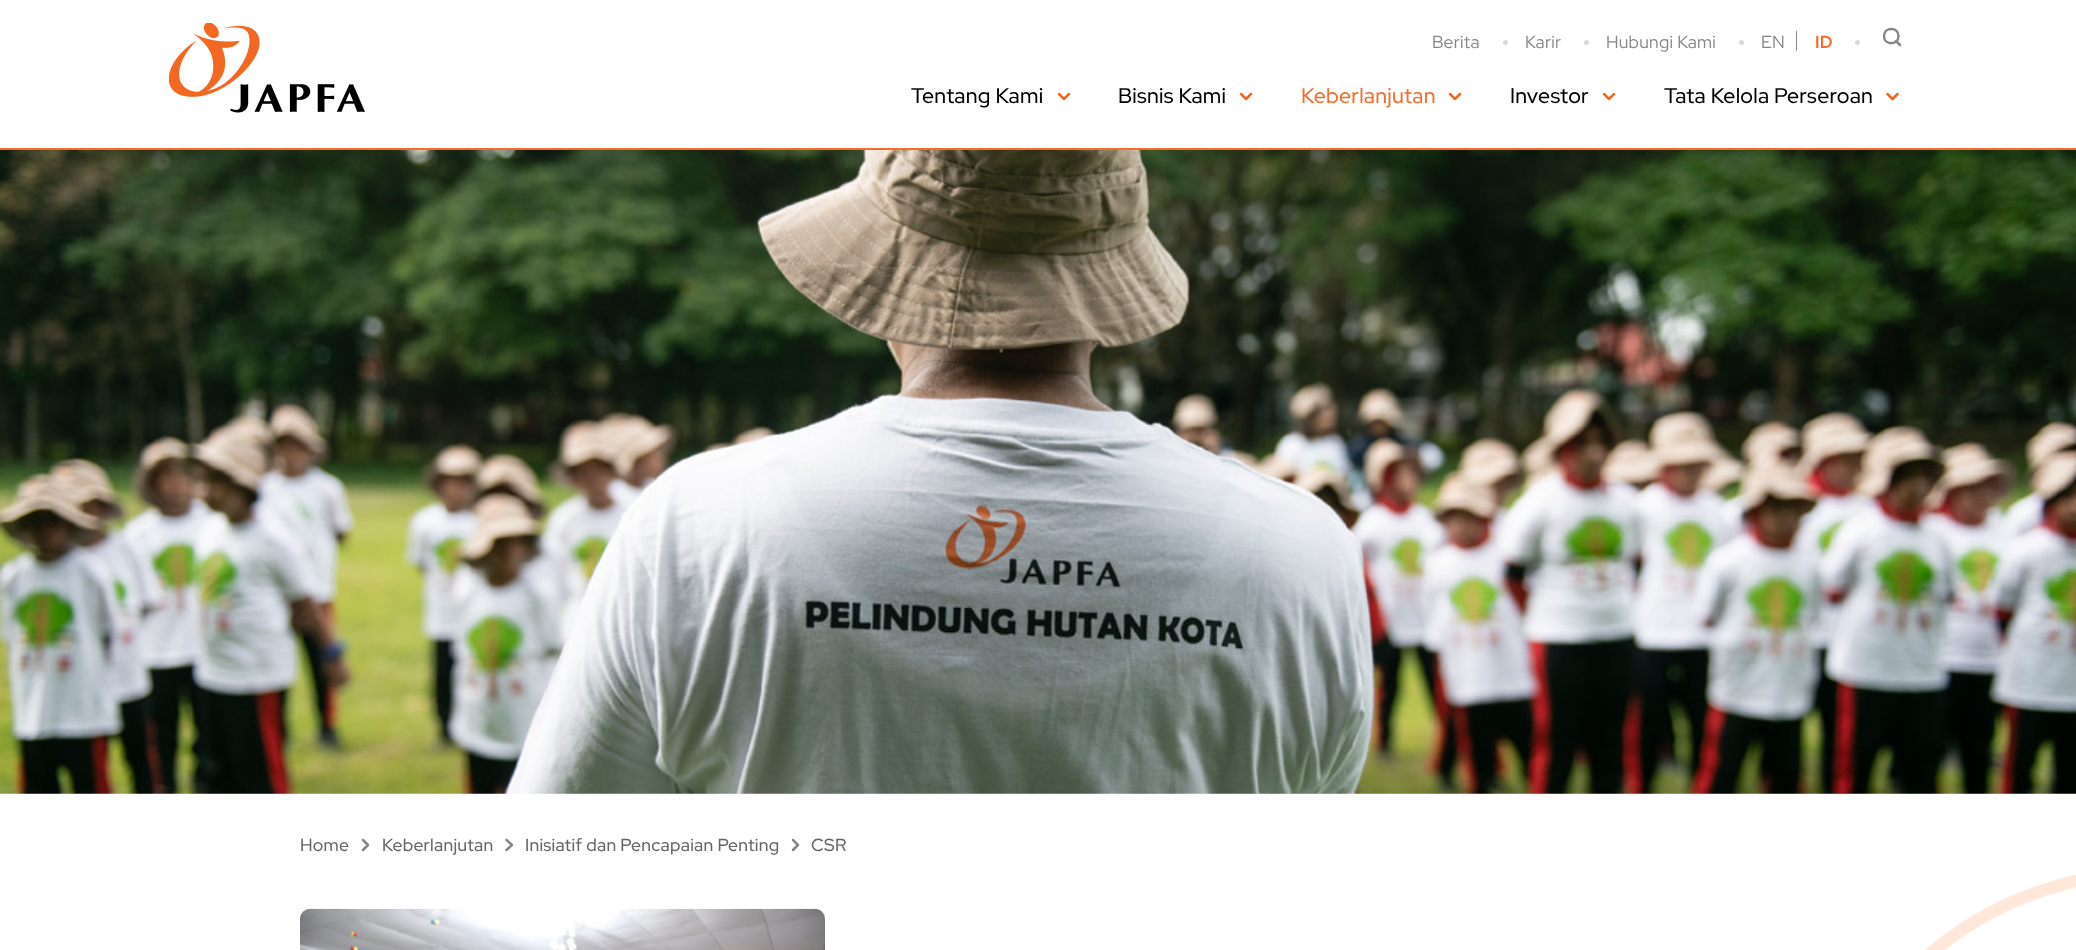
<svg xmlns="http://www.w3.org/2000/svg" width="2076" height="950">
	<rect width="100%" height="100%" fill="#FFFFFF" />
	<rect x="0" y="148" width="2076" height="2" fill="#F36E2B" />
	<image x="169" y="23" width="196" height="90" href="assets/img1.png" />
	<text x="1432" y="48" font-family="Red Hat Display" font-size="17.5" letter-spacing="0.25" fill="#868686">Berita</text>
	<circle cx="1505.5" cy="42.5" r="2.5" fill="#D9D9D9" />
	<text x="1525" y="48" font-family="Red Hat Display" font-size="17.5" letter-spacing="0.25" fill="#868686">Karir</text>
	<circle cx="1586.5" cy="42.5" r="2.5" fill="#D9D9D9" />
	<text x="1606" y="48" font-family="Red Hat Display" font-size="17.5" letter-spacing="0.25" fill="#868686">Hubungi Kami</text>
	<circle cx="1741.5" cy="42.5" r="2.5" fill="#D9D9D9" />
	<text x="1761" y="48" font-family="Red Hat Display" font-size="17.5" letter-spacing="0.25" fill="#868686">EN</text>
	<rect x="1796" y="31" width="1" height="20" fill="#868686" />
	<text x="1815" y="48" font-family="Red Hat Display" font-size="17.5" font-weight="700" letter-spacing="0.25" fill="#F36E2B">ID</text>
	<circle cx="1857.5" cy="42.5" r="2.5" fill="#D9D9D9" />
	<path d="M1900 45L1896 41M1898.5 36C1898.5 45.5 1884 45.5 1884 36C1884 26.5 1898.5 26.5 1898.5 36Z" fill="none" stroke="#868686" stroke-width="2.5" stroke-linecap="round" stroke-linejoin="round" />
	<text x="911" y="103" font-family="Red Hat Display" font-size="21.25" font-weight="500" letter-spacing="0.25" fill="#000000">Tentang Kami</text>
	<path d="M1059 94L1064 99L1069 94" fill="none" stroke="#F26722" stroke-width="2.5" stroke-linecap="round" stroke-linejoin="round" />
	<text x="1118" y="103" font-family="Red Hat Display" font-size="21.25" font-weight="500" letter-spacing="0.25" fill="#000000">Bisnis Kami</text>
	<path d="M1241 94L1246 99L1251 94" fill="none" stroke="#F26722" stroke-width="2.5" stroke-linecap="round" stroke-linejoin="round" />
	<text x="1301" y="103" font-family="Red Hat Display" font-size="21.25" font-weight="500" letter-spacing="0.25" fill="#F36E2B">Keberlanjutan</text>
	<path d="M1450 94L1455 99L1460 94" fill="none" stroke="#F26722" stroke-width="2.5" stroke-linecap="round" stroke-linejoin="round" />
	<text x="1510" y="103" font-family="Red Hat Display" font-size="21.25" font-weight="500" letter-spacing="0.25" fill="#000000">Investor</text>
	<path d="M1604 94L1609 99L1614 94" fill="none" stroke="#F26722" stroke-width="2.5" stroke-linecap="round" stroke-linejoin="round" />
	<text x="1664" y="103" font-family="Red Hat Display" font-size="21.25" font-weight="500" letter-spacing="0.25" fill="#000000">Tata Kelola Perseroan</text>
	<path d="M1887.5 94L1892.5 99L1897.5 94" fill="none" stroke="#F26722" stroke-width="2.5" stroke-linecap="round" stroke-linejoin="round" />
	<image x="0" y="150" width="2076" height="644" href="assets/img2.png" />
	<text x="300" y="851" font-family="Red Hat Display" font-size="17.5" font-weight="500" letter-spacing="0.25" fill="#666666">Home</text>
	<path d="M363 840L368 845L363 850" fill="none" stroke="#868686" stroke-width="2.5" stroke-linecap="round" stroke-linejoin="round" />
	<text x="382" y="851" font-family="Red Hat Display" font-size="17.5" font-weight="500" letter-spacing="0.25" fill="#666666">Keberlanjutan</text>
	<path d="M506.5 840L512 845L506.5 850" fill="none" stroke="#868686" stroke-width="2.5" stroke-linecap="round" stroke-linejoin="round" />
	<text x="525" y="851" font-family="Red Hat Display" font-size="17.5" font-weight="500" letter-spacing="0.25" fill="#666666">Inisiatif dan Pencapaian Penting</text>
	<path d="M793 840L798 845L793 850" fill="none" stroke="#868686" stroke-width="2.5" stroke-linecap="round" stroke-linejoin="round" />
	<text x="811" y="851" font-family="Red Hat Display" font-size="17.5" font-weight="500" letter-spacing="0.25" fill="#666666">CSR</text>
	<image x="300" y="908" width="525" height="42" href="assets/img3.png" />
	<image x="1925" y="874" width="151" height="76" href="assets/img4.png" />
</svg>
